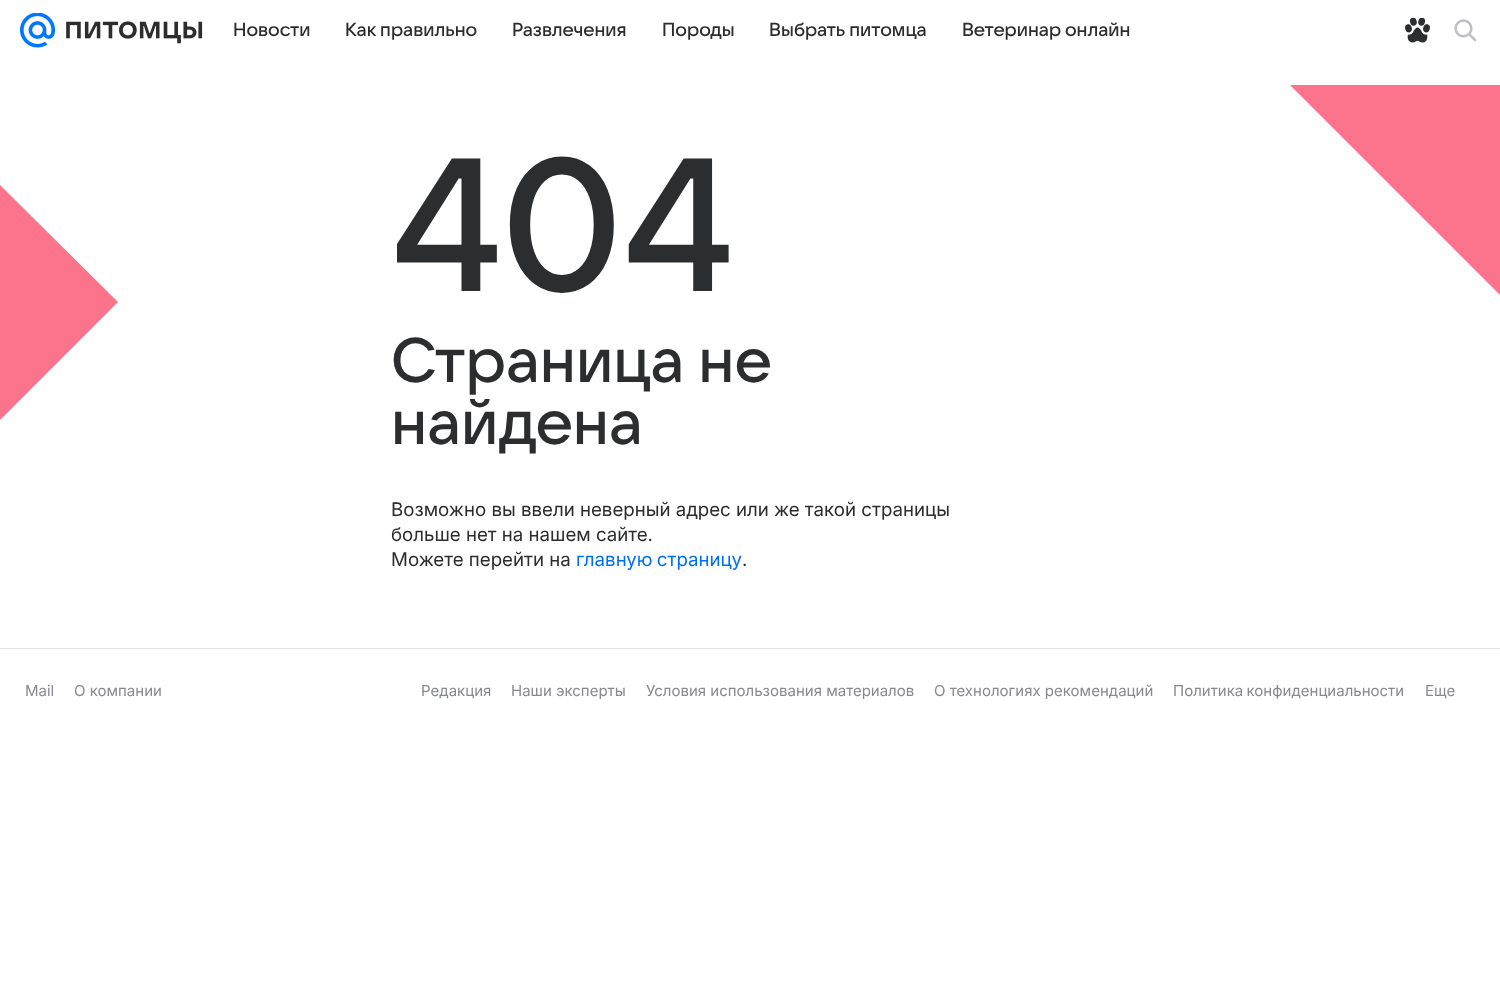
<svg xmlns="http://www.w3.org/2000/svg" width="1500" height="990">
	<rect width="100%" height="100%" fill="#FFFFFF" />
	<image x="20" y="13" width="35" height="35" href="assets/img1.png" />
	<image x="66" y="21" width="137" height="23" href="assets/img2.png" />
	<g font-family="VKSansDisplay" font-size="18.75" font-weight="500" fill="#2C2D2E">
		<text x="233" y="36">Новости</text>
		<text x="345" y="36">Как правильно</text>
		<text x="512" y="36">Развлечения</text>
		<text x="662" y="36">Породы</text>
		<text x="769" y="36">Выбрать питомца</text>
		<text x="962" y="36">Ветеринар онлайн</text>
	</g>
	<image x="1405" y="18" width="25" height="25" href="assets/img3.png" />
	<image x="1454" y="19" width="23" height="23" href="assets/img4.png" />
	<path d="M0 420V185L118 302Z" fill="#FC738C" />
	<text x="391" y="291" font-family="VKSansDisplay" font-size="188" font-weight="500" fill="#2C2D2E">404</text>
	<g font-family="VKSansDisplay" font-size="62.5" font-weight="500" fill="#2C2D2E">
		<text x="391" y="382" word-spacing="-1">Страница не</text>
		<text x="391" y="444">найдена</text>
	</g>
	<g font-family="Inter" font-size="18.75" fill="#2C2D2E">
		<text x="391" y="516">Возможно вы ввели неверный адрес или же такой страницы</text>
		<text x="391" y="541">больше нет на нашем сайте.</text>
		<text x="391" y="566">Можете перейти на</text>
	</g>
	<text x="576" y="566" word-spacing="-1" font-family="Inter" font-size="18.75" fill="#0070F0">главную страницу</text>
	<text x="742" y="566" font-family="Inter" font-size="18.75" fill="#2C2D2E">.</text>
	<path d="M1500 85V295L1290 85Z" fill="#FC738C" />
	<rect x="0" y="648" width="1500" height="1" fill="#E0E2E8" />
	<g font-family="'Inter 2'" font-size="15" fill="#87898F">
		<text x="25" y="696">Mail</text>
		<text x="74" y="696">О компании</text>
		<text x="421" y="696">Редакция</text>
		<text x="511" y="696">Наши эксперты</text>
		<text x="646" y="696">Условия использования материалов</text>
		<text x="934" y="696">О технологиях рекомендаций</text>
		<text x="1173" y="696" word-spacing="-1">Политика конфиденциальности</text>
		<text x="1425" y="696">Еще</text>
	</g>
</svg>
